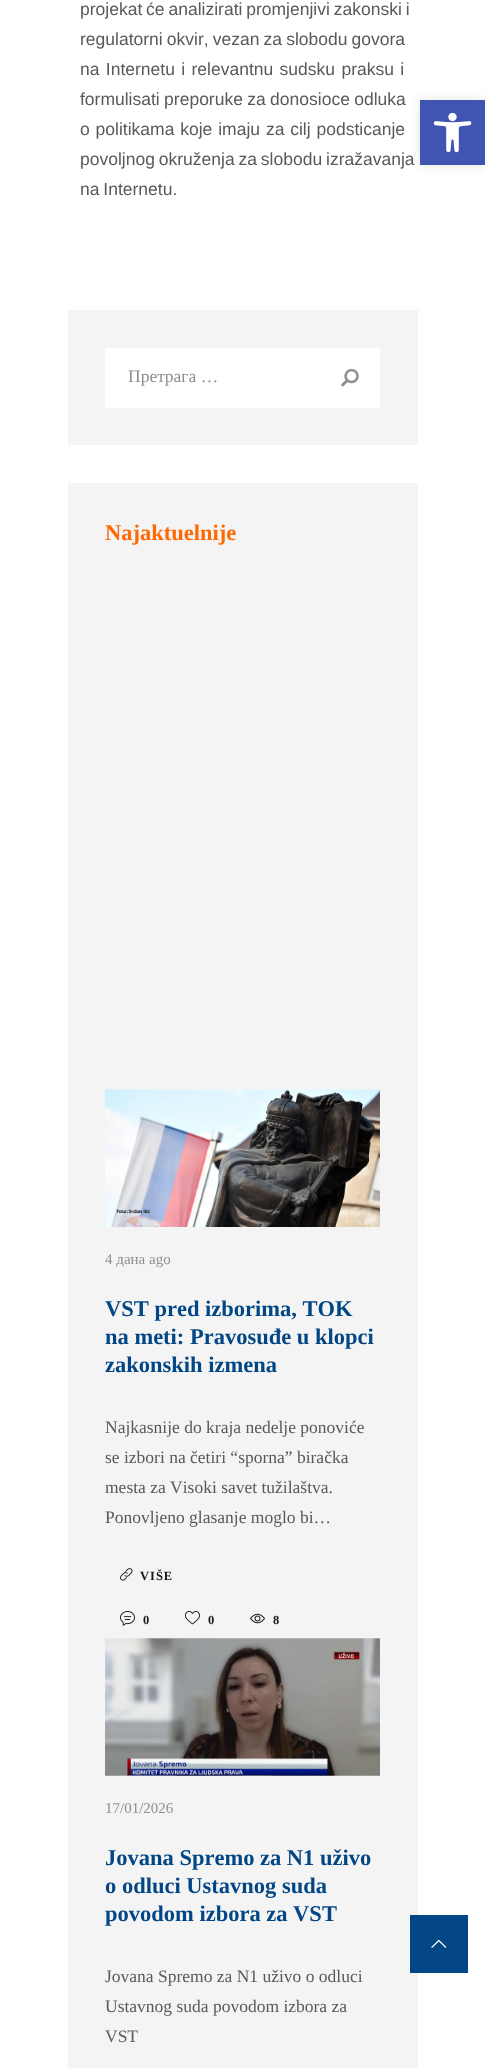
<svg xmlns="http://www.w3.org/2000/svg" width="485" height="2068">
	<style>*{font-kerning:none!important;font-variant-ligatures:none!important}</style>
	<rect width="100%" height="100%" fill="#FFFFFF" />
	<g font-family="Liberation Sans" font-size="17.5" fill="#595959">
		<text x="80" y="15" word-spacing="-1">projekat će analizirati promjenjivi zakonski i</text>
		<text x="80" y="45" word-spacing="-0.75">regulatorni okvir, vezan za slobodu govora</text>
		<text x="80" y="75" word-spacing="1.5">na Internetu i relevantnu sudsku praksu i</text>
		<text x="80" y="105" word-spacing="-0.5">formulisati preporuke za donosioce odluka</text>
		<text x="80" y="135" word-spacing="1">o politikama koje imaju za cilj podsticanje</text>
		<text x="80" y="165" word-spacing="-1">povoljnog okruženja za slobodu izražavanja</text>
		<text x="80" y="195" word-spacing="-1">na Internetu.</text>
	</g>
	<rect x="68" y="310" width="350" height="135" fill="#F4F4F4" />
	<rect x="105" y="348" width="275" height="60" fill="#FFFFFF" />
	<text x="128" y="382" font-family="Liberation Serif" font-size="17.5" fill="#8E8E8E">Претрага …</text>
	<image x="341" y="368" width="18" height="19" href="assets/img1.png" />
	<rect x="68" y="483" width="350" height="1585" fill="#F4F4F4" />
	<text x="105" y="540" font-family="Liberation Serif" font-size="22.5" font-weight="700" fill="#FE6903">Najaktuelnije</text>
	<image x="105" y="1089" width="275" height="138" href="assets/img2.png" />
	<text x="105" y="1264" font-family="Liberation Serif" font-size="15" fill="#8E8E8E">4 дана ago</text>
	<g font-family="Liberation Serif" font-size="22.5" font-weight="700" fill="#024685">
		<text x="105" y="1316">VST pred izborima, TOK</text>
		<text x="105" y="1344">na meti: Pravosuđe u klopci</text>
		<text x="105" y="1372">zakonskih izmena</text>
	</g>
	<g font-family="Liberation Serif" font-size="17.5" fill="#595959">
		<text x="105" y="1433">Najkasnije do kraja nedelje ponoviće</text>
		<text x="105" y="1463">se izbori na četiri “sporna” biračka</text>
		<text x="105" y="1493">mesta za Visoki savet tužilaštva.</text>
		<text x="105" y="1523">Ponovljeno glasanje moglo bi…</text>
	</g>
	<image x="120" y="1568" width="13" height="13" href="assets/img3.png" />
	<text x="140" y="1580" font-family="Liberation Serif" font-size="12.5" font-weight="700" letter-spacing="1" fill="#191919">VIŠE</text>
	<image x="120" y="1611" width="15" height="15" href="assets/img4.png" />
	<text x="143" y="1624" font-family="Liberation Serif" font-size="12.5" font-weight="700" fill="#191919">0</text>
	<image x="185" y="1611" width="15" height="14" href="assets/img5.png" />
	<text x="208" y="1624" font-family="Liberation Serif" font-size="12.5" font-weight="700" fill="#191919">0</text>
	<image x="250" y="1613" width="15" height="11" href="assets/img6.png" />
	<text x="273" y="1624" font-family="Liberation Serif" font-size="12.5" font-weight="700" fill="#191919">8</text>
	<image x="105" y="1638" width="275" height="138" href="assets/img7.png" />
	<text x="105" y="1813" font-family="Liberation Serif" font-size="15" fill="#8E8E8E">17/01/2026</text>
	<g font-family="Liberation Serif" font-size="22.5" font-weight="700" fill="#024685">
		<text x="105" y="1865">Jovana Spremo za N1 uživo</text>
		<text x="105" y="1893">o odluci Ustavnog suda</text>
		<text x="105" y="1921">povodom izbora za VST</text>
	</g>
	<g font-family="Liberation Serif" font-size="17.5" fill="#595959">
		<text x="105" y="1982">Jovana Spremo za N1 uživo o odluci</text>
		<text x="105" y="2012">Ustavnog suda povodom izbora za</text>
		<text x="105" y="2042">VST</text>
	</g>
	<rect x="420" y="100" width="65" height="65" fill="#000000" fill-opacity="0.1" filter="blur(6px)" />
	<rect x="420" y="100" width="65" height="65" fill="#4054B2" />
	<image x="433" y="113" width="39" height="40" href="assets/img8.png" />
	<rect x="410" y="1915" width="58" height="58" fill="#024685" />
	<image x="431" y="1939" width="16" height="9" href="assets/img9.png" />
</svg>
